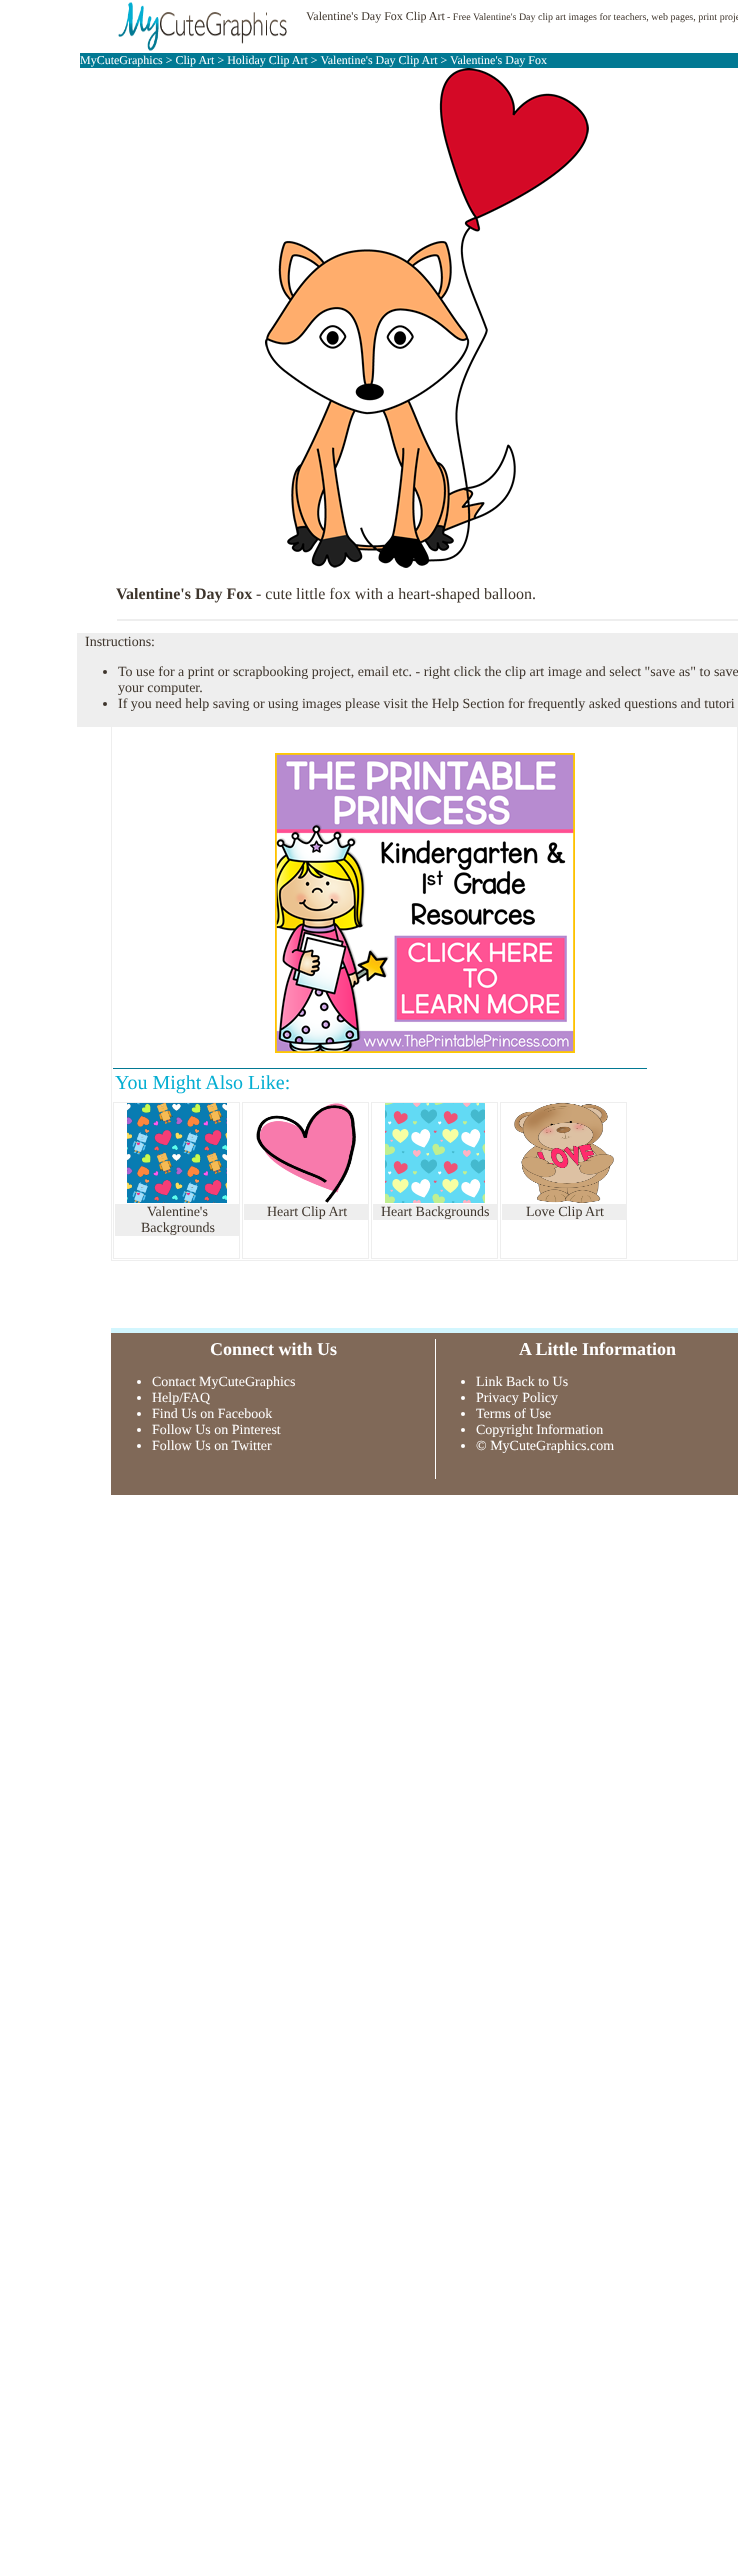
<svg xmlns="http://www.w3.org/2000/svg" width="738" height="2555">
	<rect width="100%" height="100%" fill="#FFFFFF" />
	<image x="118" y="2" width="169" height="49" href="assets/img1.png" />
	<text x="306" y="20" font-family="Liberation Serif" font-size="12" fill="#3E352C">Valentine's Day Fox Clip Art</text>
	<text x="447" y="20" font-family="Liberation Serif" font-size="10" fill="#3E352C">- Free Valentine's Day clip art images for teachers, web pages, print proje</text>
	<rect x="111.5" y="92.5" width="626" height="1168" fill="none" stroke="#EEEEEE" />
	<rect x="111" y="92" width="627" height="541" fill="#FFFFFF" />
	<rect x="80" y="53" width="658" height="15" fill="#027993" />
	<text x="80" y="64" font-family="Liberation Serif" font-size="12" fill="#FFFFFF">MyCuteGraphics &gt; Clip Art &gt; Holiday Clip Art &gt; Valentine's Day Clip Art &gt; Valentine's Day Fox</text>
	<image x="265" y="68" width="324" height="500" href="assets/img2.png" />
	<text x="116" y="599" font-family="Liberation Serif" font-size="16" font-weight="700" fill="#3E352C">Valentine's Day Fox</text>
	<text x="256" y="599" font-family="Liberation Serif" font-size="16" fill="#3E352C">- cute little fox with a heart-shaped balloon.</text>
	<rect x="117" y="619" width="621" height="2" fill="#EEEEEE" />
	<rect x="77" y="633" width="660" height="94" fill="#EEEEEE" />
	<text x="85" y="646" font-family="Liberation Serif" font-size="14" fill="#3E352C">Instructions:</text>
	<circle cx="105" cy="672" r="2" fill="#3E352C" />
	<g font-family="Liberation Serif" font-size="14" fill="#3E352C">
		<text x="118" y="676">To use for a print or scrapbooking project, email etc. - right click the clip art image and select "save as" to save</text>
		<text x="118" y="692">your computer.</text>
	</g>
	<circle cx="105" cy="704" r="2" fill="#3E352C" />
	<text x="118" y="708" font-family="Liberation Serif" font-size="14" fill="#3E352C">If you need help saving or using images please visit the Help Section for frequently asked questions and tutori</text>
	<image x="275" y="753" width="300" height="300" href="assets/img3.png" />
	<rect x="113" y="1068" width="534" height="1" fill="#027993" />
	<text x="115" y="1089" font-family="Liberation Serif" font-size="20" fill="#04AED2">You Might Also Like:</text>
	<rect x="113.5" y="1102.5" width="126" height="156" fill="none" stroke="#EEEEEE" />
	<image x="127" y="1103" width="100" height="100" href="assets/img4.png" />
	<rect x="115" y="1204" width="124" height="32" fill="#EEEEEE" />
	<g font-family="Liberation Serif" font-size="14" fill="#3E352C">
		<text x="147" y="1216">Valentine's</text>
		<text x="141" y="1232">Backgrounds</text>
	</g>
	<rect x="242.5" y="1102.5" width="126" height="156" fill="none" stroke="#EEEEEE" />
	<image x="256" y="1103" width="100" height="100" href="assets/img5.png" />
	<rect x="244" y="1204" width="124" height="16" fill="#EEEEEE" />
	<text x="267" y="1216" font-family="Liberation Serif" font-size="14" fill="#3E352C">Heart Clip Art</text>
	<rect x="371.5" y="1102.5" width="126" height="156" fill="none" stroke="#EEEEEE" />
	<image x="385" y="1103" width="100" height="100" href="assets/img6.png" />
	<rect x="373" y="1204" width="124" height="16" fill="#EEEEEE" />
	<text x="381" y="1216" font-family="Liberation Serif" font-size="14" fill="#3E352C">Heart Backgrounds</text>
	<rect x="500.5" y="1102.5" width="126" height="156" fill="none" stroke="#EEEEEE" />
	<image x="514" y="1103" width="100" height="100" href="assets/img7.png" />
	<rect x="502" y="1204" width="124" height="16" fill="#EEEEEE" />
	<text x="526" y="1216" font-family="Liberation Serif" font-size="14" fill="#3E352C">Love Clip Art</text>
	<rect x="111" y="1333" width="627" height="162" fill="#806958" />
	<rect x="111" y="1328" width="627" height="5" fill="#D2F6FE" />
	<rect x="435" y="1339" width="1" height="140" fill="#FFFFFF" />
	<text x="210" y="1355" font-family="Liberation Serif" font-size="18" font-weight="700" fill="#FFFFFF">Connect with Us</text>
	<circle cx="139" cy="1382" r="2" fill="#FFFFFF" />
	<text x="152" y="1386" font-family="Liberation Serif" font-size="14" fill="#FFFFFF">Contact MyCuteGraphics</text>
	<circle cx="139" cy="1398" r="2" fill="#FFFFFF" />
	<text x="152" y="1402" font-family="Liberation Serif" font-size="14" fill="#FFFFFF">Help/FAQ</text>
	<circle cx="139" cy="1414" r="2" fill="#FFFFFF" />
	<text x="152" y="1418" font-family="Liberation Serif" font-size="14" fill="#FFFFFF">Find Us on Facebook</text>
	<circle cx="139" cy="1430" r="2" fill="#FFFFFF" />
	<text x="152" y="1434" font-family="Liberation Serif" font-size="14" fill="#FFFFFF">Follow Us on Pinterest</text>
	<circle cx="139" cy="1446" r="2" fill="#FFFFFF" />
	<text x="152" y="1450" font-family="Liberation Serif" font-size="14" fill="#FFFFFF">Follow Us on Twitter</text>
	<text x="519" y="1355" font-family="Liberation Serif" font-size="18" font-weight="700" fill="#FFFFFF">A Little Information</text>
	<circle cx="463" cy="1382" r="2" fill="#FFFFFF" />
	<text x="476" y="1386" font-family="Liberation Serif" font-size="14" fill="#FFFFFF">Link Back to Us</text>
	<circle cx="463" cy="1398" r="2" fill="#FFFFFF" />
	<text x="476" y="1402" font-family="Liberation Serif" font-size="14" fill="#FFFFFF">Privacy Policy</text>
	<circle cx="463" cy="1414" r="2" fill="#FFFFFF" />
	<text x="476" y="1418" font-family="Liberation Serif" font-size="14" fill="#FFFFFF">Terms of Use</text>
	<circle cx="463" cy="1430" r="2" fill="#FFFFFF" />
	<text x="476" y="1434" font-family="Liberation Serif" font-size="14" fill="#FFFFFF">Copyright Information</text>
	<circle cx="463" cy="1446" r="2" fill="#FFFFFF" />
	<text x="476" y="1450" font-family="Liberation Serif" font-size="14" fill="#FFFFFF">© MyCuteGraphics.com</text>
</svg>
